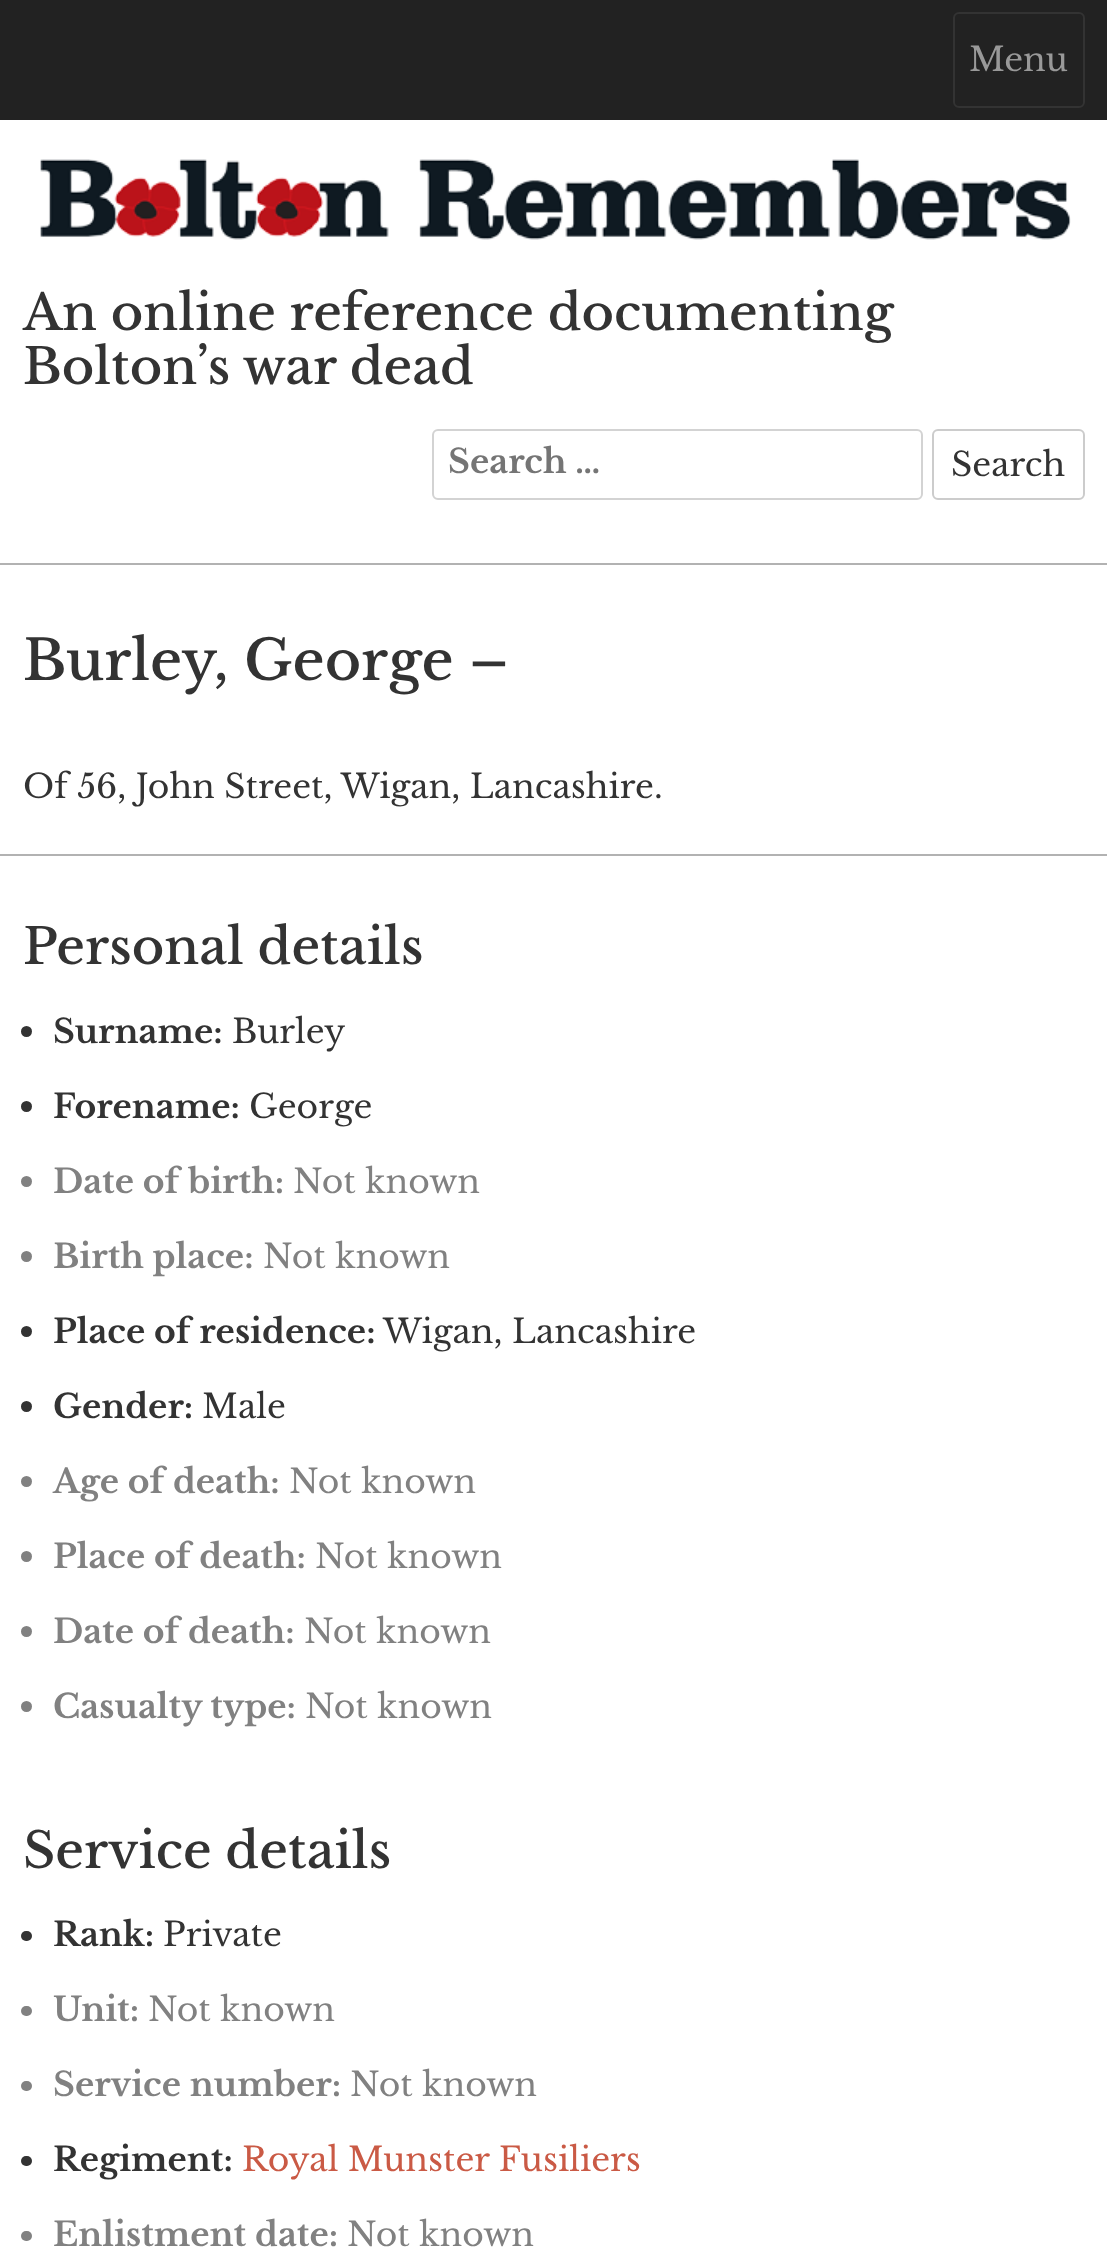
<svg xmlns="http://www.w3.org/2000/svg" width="1107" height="2265">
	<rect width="100%" height="100%" fill="#FFFFFF" />
	<rect x="0" y="0" width="1107" height="120" fill="#222222" />
	<rect x="954" y="13" width="130" height="94" rx="5" fill="none" stroke="#333333" stroke-width="2" />
	<text x="969" y="71" font-family="Libre Baskerville" font-size="33" fill="#999999">Menu</text>
	<image x="40" y="159" width="1031" height="81" href="assets/img1.png" />
	<g font-family="Libre Baskerville" font-size="49.5" font-weight="500" fill="#333333">
		<text x="23" y="330">An online reference documenting</text>
		<text x="23" y="384">Bolton’s war dead</text>
	</g>
	<rect x="433" y="430" width="489" height="69" rx="5" fill="none" stroke="#D3D3D3" stroke-width="2" />
	<text x="448" y="473" font-family="Libre Baskerville" font-size="33" font-weight="700" fill="#757575">Search …</text>
	<rect x="933" y="430" width="151" height="69" rx="5" fill="none" stroke="#CCCCCC" stroke-width="2" />
	<text x="951" y="476" font-family="Libre Baskerville" font-size="33" fill="#333333">Search</text>
	<rect x="0" y="563" width="1107" height="2" fill="#B2B2B2" />
	<text x="23" y="680" font-family="Libre Baskerville" font-size="55.5" font-weight="500" fill="#333333">Burley, George –</text>
	<text x="23" y="798" font-family="Libre Baskerville" font-size="33" fill="#333333">Of 56, John Street, Wigan, Lancashire.</text>
	<rect x="0" y="854" width="1107" height="2" fill="#B2B2B2" />
	<text x="23" y="964" font-family="Libre Baskerville" font-size="49.5" font-weight="500" fill="#333333">Personal details</text>
	<circle cx="26.5" cy="1031.5" r="5.5" fill="#333333" />
	<text x="53" y="1043" font-family="Libre Baskerville" font-size="33" font-weight="700" fill="#333333">Surname:</text>
	<text x="232" y="1043" font-family="Libre Baskerville" font-size="33" fill="#333333">Burley</text>
	<circle cx="26.5" cy="1106.5" r="5.5" fill="#333333" />
	<text x="53" y="1118" font-family="Libre Baskerville" font-size="33" font-weight="700" fill="#333333">Forename:</text>
	<text x="249" y="1118" font-family="Libre Baskerville" font-size="33" fill="#333333">George</text>
	<circle cx="26.5" cy="1181.5" r="5.5" fill="#818181" />
	<text x="53" y="1193" font-family="Libre Baskerville" font-size="33" font-weight="700" fill="#818181">Date of birth:</text>
	<text x="293" y="1193" font-family="Libre Baskerville" font-size="33" fill="#818181">Not known</text>
	<circle cx="26.5" cy="1256.5" r="5.5" fill="#818181" />
	<text x="53" y="1268" font-family="Libre Baskerville" font-size="33" font-weight="700" fill="#818181">Birth place:</text>
	<text x="263" y="1268" font-family="Libre Baskerville" font-size="33" fill="#818181">Not known</text>
	<circle cx="26.5" cy="1331.5" r="5.5" fill="#333333" />
	<text x="53" y="1343" font-family="Libre Baskerville" font-size="33" font-weight="700" fill="#333333">Place of residence:</text>
	<text x="383" y="1343" font-family="Libre Baskerville" font-size="33" fill="#333333">Wigan, Lancashire</text>
	<circle cx="26.5" cy="1406.5" r="5.5" fill="#333333" />
	<text x="53" y="1418" font-family="Libre Baskerville" font-size="33" font-weight="700" fill="#333333">Gender:</text>
	<text x="202" y="1418" font-family="Libre Baskerville" font-size="33" fill="#333333">Male</text>
	<circle cx="26.5" cy="1481.5" r="5.5" fill="#818181" />
	<text x="53" y="1493" font-family="Libre Baskerville" font-size="33" font-weight="700" fill="#818181">Age of death:</text>
	<text x="289" y="1493" font-family="Libre Baskerville" font-size="33" fill="#818181">Not known</text>
	<circle cx="26.5" cy="1556.5" r="5.5" fill="#818181" />
	<text x="53" y="1568" font-family="Libre Baskerville" font-size="33" font-weight="700" fill="#818181">Place of death:</text>
	<text x="315" y="1568" font-family="Libre Baskerville" font-size="33" fill="#818181">Not known</text>
	<circle cx="26.5" cy="1631.5" r="5.5" fill="#818181" />
	<text x="53" y="1643" font-family="Libre Baskerville" font-size="33" font-weight="700" fill="#818181">Date of death:</text>
	<text x="304" y="1643" font-family="Libre Baskerville" font-size="33" fill="#818181">Not known</text>
	<circle cx="26.5" cy="1706.5" r="5.5" fill="#818181" />
	<text x="53" y="1718" font-family="Libre Baskerville" font-size="33" font-weight="700" fill="#818181">Casualty type:</text>
	<text x="305" y="1718" font-family="Libre Baskerville" font-size="33" fill="#818181">Not known</text>
	<text x="23" y="1868" font-family="Libre Baskerville" font-size="49.5" font-weight="500" fill="#333333">Service details</text>
	<rect x="21" y="1931" width="11" height="10" rx="5" fill="#333333" />
	<text x="53" y="1946" font-family="Libre Baskerville" font-size="33" font-weight="700" fill="#333333">Rank:</text>
	<text x="163" y="1946" font-family="Libre Baskerville" font-size="33" fill="#333333">Private</text>
	<rect x="21" y="2006" width="11" height="10" rx="5" fill="#818181" />
	<text x="53" y="2021" font-family="Libre Baskerville" font-size="33" font-weight="700" fill="#818181">Unit:</text>
	<text x="148" y="2021" font-family="Libre Baskerville" font-size="33" fill="#818181">Not known</text>
	<rect x="21" y="2081" width="11" height="10" rx="5" fill="#818181" />
	<text x="53" y="2096" font-family="Libre Baskerville" font-size="33" font-weight="700" fill="#818181">Service number:</text>
	<text x="350" y="2096" font-family="Libre Baskerville" font-size="33" fill="#818181">Not known</text>
	<rect x="21" y="2156" width="11" height="10" rx="5" fill="#333333" />
	<text x="53" y="2171" font-family="Libre Baskerville" font-size="33" font-weight="700" fill="#333333">Regiment:</text>
	<text x="242" y="2171" font-family="Libre Baskerville" font-size="33" fill="#CA5A45">Royal Munster Fusiliers</text>
	<rect x="21" y="2231" width="11" height="10" rx="5" fill="#818181" />
	<text x="53" y="2246" font-family="Libre Baskerville" font-size="33" font-weight="700" fill="#818181">Enlistment date:</text>
	<text x="347" y="2246" font-family="Libre Baskerville" font-size="33" fill="#818181">Not known</text>
</svg>
